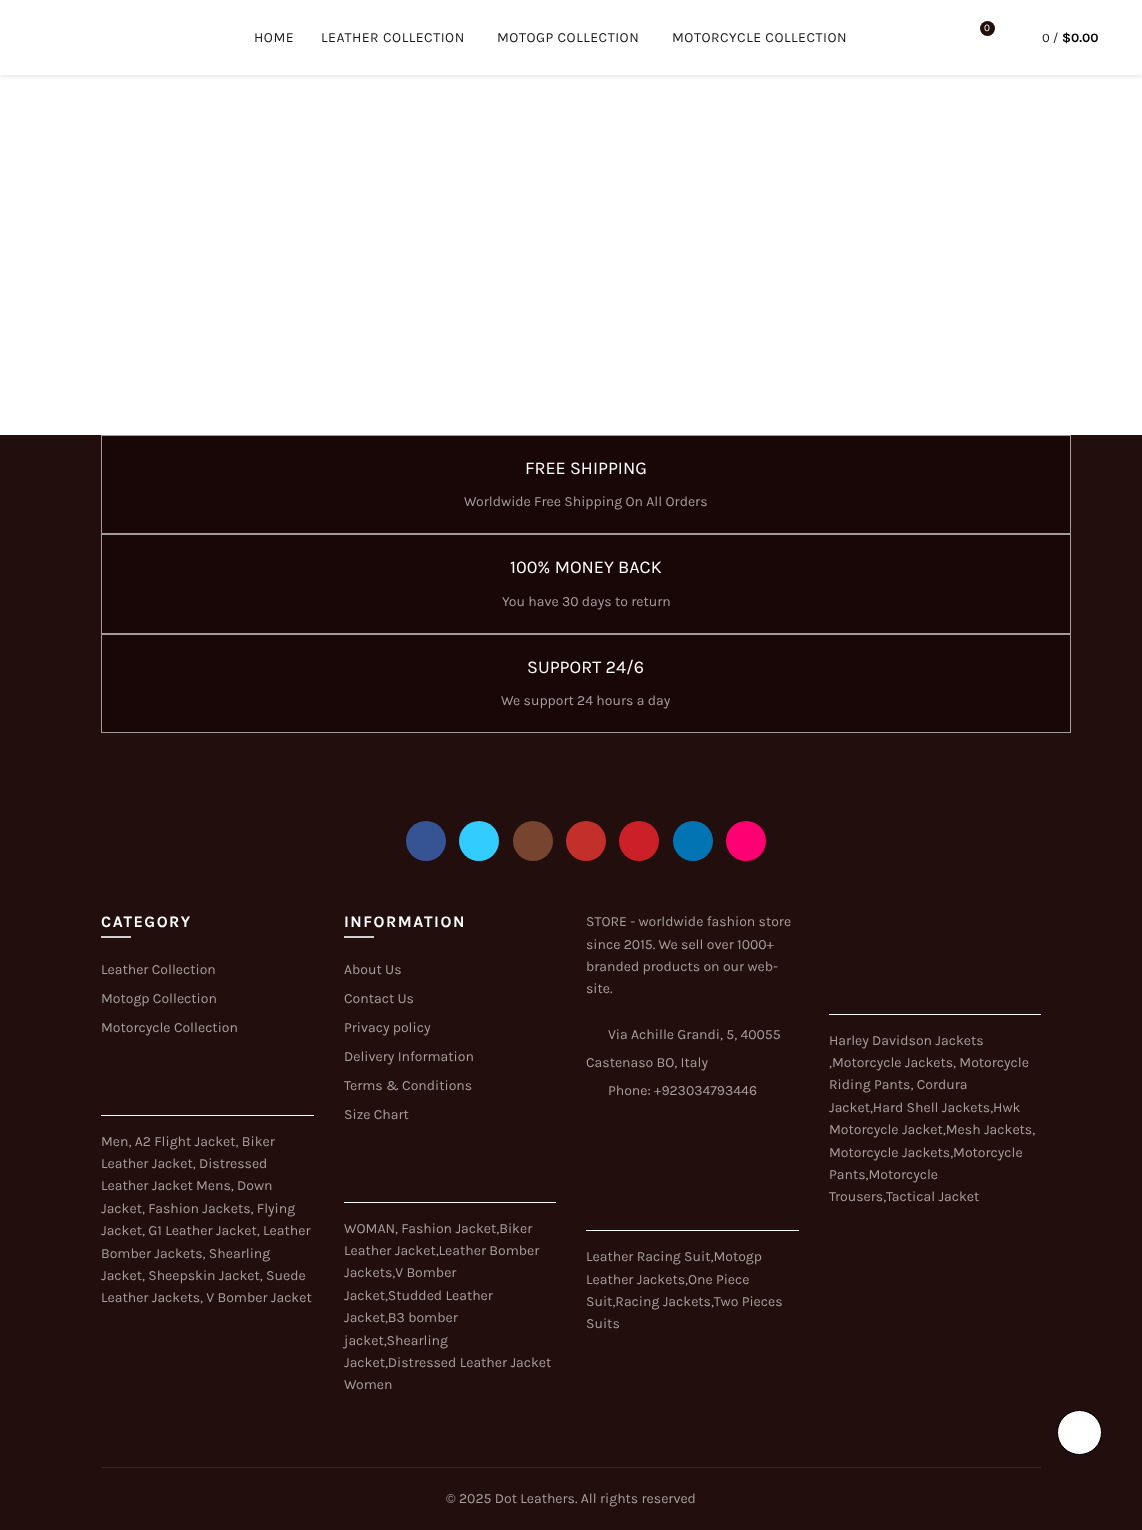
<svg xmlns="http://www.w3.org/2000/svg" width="1142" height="1530">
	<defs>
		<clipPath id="clip1"><rect x="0" y="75" width="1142" height="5" /></clipPath>
	</defs>
	<rect width="100%" height="100%" fill="#FFFFFF" />
	<g clip-path="url(#clip1)">
		<rect x="0" y="1" width="1142" height="75" fill="#BEBEBE" fill-opacity="0.5" filter="blur(2.5px)" />
	</g>
	<g font-family="Karla" font-size="14" letter-spacing="0.5" fill="#1A1A1A">
		<text x="254" y="42">HOME</text>
		<text x="321" y="42">LEATHER COLLECTION</text>
		<text x="497" y="42">MOTOGP COLLECTION</text>
		<text x="672" y="42">MOTORCYCLE COLLECTION</text>
	</g>
	<circle cx="987.5" cy="28.5" r="7.5" fill="#230E0E" />
	<text x="984" y="31" font-family="Karla" font-size="10" fill="#FFFFFF">0</text>
	<text x="1042" y="42" font-family="Karla" font-size="13" fill="#1A1A1A">0 /</text>
	<text x="1062" y="42" font-family="Karla" font-size="13" font-weight="700" fill="#000000">$0.00</text>
	<rect x="0" y="435" width="1142" height="1095" fill="#230E0E" />
	<rect x="102" y="436" width="968" height="296" fill="#190707" />
	<rect x="101.5" y="435.5" width="969" height="98" fill="none" stroke="#A39C9C" />
	<text x="525" y="474" font-family="Karla" font-size="18" fill="#FFFFFF">FREE SHIPPING</text>
	<text x="464" y="506" font-family="Karla" font-size="14" fill="#A79F9F">Worldwide Free Shipping On All Orders</text>
	<rect x="101.5" y="534.5" width="969" height="99" fill="none" stroke="#A39C9C" />
	<text x="510" y="573" font-family="Karla" font-size="18" fill="#FFFFFF">100% MONEY BACK</text>
	<text x="502" y="606" font-family="Karla" font-size="14" fill="#A79F9F">You have 30 days to return</text>
	<rect x="101.5" y="634.5" width="969" height="98" fill="none" stroke="#A39C9C" />
	<text x="527" y="673" font-family="Karla" font-size="18" fill="#FFFFFF">SUPPORT 24/6</text>
	<text x="501" y="705" font-family="Karla" font-size="14" fill="#A79F9F">We support 24 hours a day</text>
	<circle cx="426" cy="841" r="20" fill="#365493" />
	<circle cx="479" cy="841" r="20" fill="#33CCFF" />
	<circle cx="533" cy="841" r="20" fill="#774430" />
	<circle cx="586" cy="841" r="20" fill="#C32F2B" />
	<circle cx="639" cy="841" r="20" fill="#CB2027" />
	<circle cx="693" cy="841" r="20" fill="#0274B3" />
	<circle cx="746" cy="841" r="20" fill="#FE0072" />
	<text x="101" y="927" font-family="Karla" font-size="16" font-weight="700" letter-spacing="1.5" fill="#FFFFFF">CATEGORY</text>
	<rect x="101" y="936" width="30" height="2" fill="#D3CFCF" />
	<g font-family="Karla" font-size="14" fill="#A79F9F">
		<text x="101" y="974">Leather Collection</text>
		<text x="101" y="1003">Motogp Collection</text>
		<text x="101" y="1032">Motorcycle Collection</text>
	</g>
	<rect x="101" y="1115" width="213" height="1" fill="#FFFFFF" />
	<g font-family="Karla" font-size="14" fill="#A79F9F">
		<text x="101" y="1146">Men, A2 Flight Jacket, Biker</text>
		<text x="101" y="1168">Leather Jacket, Distressed</text>
		<text x="101" y="1190">Leather Jacket Mens, Down</text>
		<text x="101" y="1213">Jacket, Fashion Jackets, Flying</text>
		<text x="101" y="1235">Jacket, G1 Leather Jacket, Leather</text>
		<text x="101" y="1258">Bomber Jackets, Shearling</text>
		<text x="101" y="1280">Jacket, Sheepskin Jacket, Suede</text>
		<text x="101" y="1302">Leather Jackets, V Bomber Jacket</text>
	</g>
	<text x="344" y="927" font-family="Karla" font-size="16" font-weight="700" letter-spacing="1.5" fill="#FFFFFF">INFORMATION</text>
	<rect x="344" y="936" width="30" height="2" fill="#D3CFCF" />
	<g font-family="Karla" font-size="14" fill="#A79F9F">
		<text x="344" y="974">About Us</text>
		<text x="344" y="1003">Contact Us</text>
		<text x="344" y="1032">Privacy policy</text>
		<text x="344" y="1061">Delivery Information</text>
		<text x="344" y="1090">Terms &amp; Conditions</text>
		<text x="344" y="1119">Size Chart</text>
	</g>
	<rect x="344" y="1202" width="212" height="1" fill="#FFFFFF" />
	<g font-family="Karla" font-size="14" fill="#A79F9F">
		<text x="344" y="1233">WOMAN, Fashion Jacket,Biker</text>
		<text x="344" y="1255">Leather Jacket,Leather Bomber</text>
		<text x="344" y="1277">Jackets,V Bomber</text>
		<text x="344" y="1300">Jacket,Studded Leather</text>
		<text x="344" y="1322">Jacket,B3 bomber</text>
		<text x="344" y="1345">jacket,Shearling</text>
		<text x="344" y="1367">Jacket,Distressed Leather Jacket</text>
		<text x="344" y="1389">Women</text>
		<text x="586" y="926">STORE - worldwide fashion store</text>
		<text x="586" y="949">since 2015. We sell over 1000+</text>
		<text x="586" y="971">branded products on our web-</text>
		<text x="586" y="993">site.</text>
		<text x="608" y="1039">Via Achille Grandi, 5, 40055</text>
		<text x="586" y="1067">Castenaso BO, Italy</text>
		<text x="608" y="1095">Phone: +923034793446</text>
	</g>
	<rect x="586" y="1230" width="213" height="1" fill="#FFFFFF" />
	<g font-family="Karla" font-size="14" fill="#A79F9F">
		<text x="586" y="1261">Leather Racing Suit,Motogp</text>
		<text x="586" y="1284">Leather Jackets,One Piece</text>
		<text x="586" y="1306">Suit,Racing Jackets,Two Pieces</text>
		<text x="586" y="1328">Suits</text>
	</g>
	<rect x="829" y="1014" width="212" height="1" fill="#FFFFFF" />
	<g font-family="Karla" font-size="14" fill="#A79F9F">
		<text x="829" y="1045">Harley Davidson Jackets</text>
		<text x="829" y="1067">,Motorcycle Jackets, Motorcycle</text>
		<text x="829" y="1089">Riding Pants, Cordura</text>
		<text x="829" y="1112">Jacket,Hard Shell Jackets,Hwk</text>
		<text x="829" y="1134">Motorcycle Jacket,Mesh Jackets,</text>
		<text x="829" y="1157">Motorcycle Jackets,Motorcycle</text>
		<text x="829" y="1179">Pants,Motorcycle</text>
		<text x="829" y="1201">Trousers,Tactical Jacket</text>
	</g>
	<rect x="101" y="1467" width="940" height="1" fill="#392626" />
	<text x="446" y="1503" font-family="Karla" font-size="14" fill="#A79F9F">© 2025 Dot Leathers. All rights reserved</text>
	<circle cx="1079.5" cy="1432.5" r="22" fill="#FFFFFF" stroke="#000000" />
</svg>
